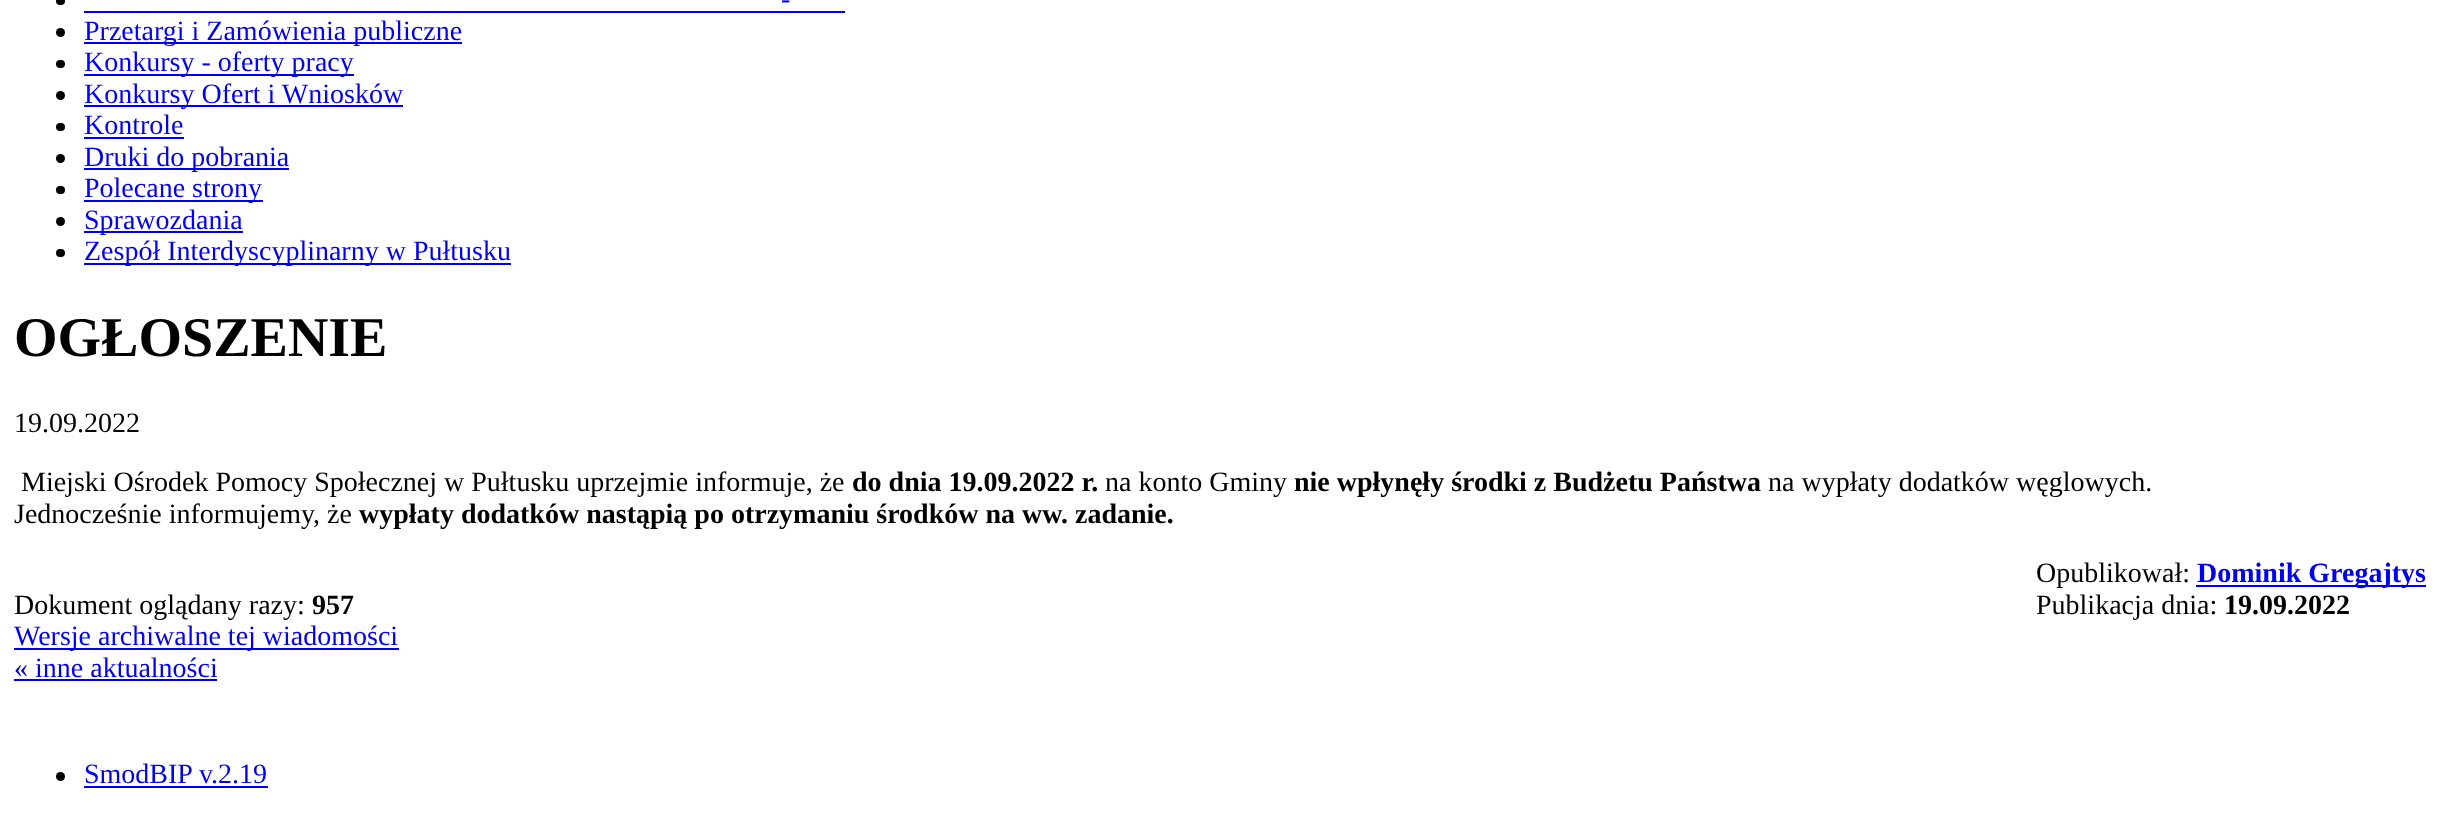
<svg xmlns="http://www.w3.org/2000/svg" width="2438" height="819">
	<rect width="100%" height="100%" fill="#FFFFFF" />
	<rect x="56" y="-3" width="9" height="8" rx="4" fill="#000000" />
	<text x="781" y="8" font-family="Liberation Serif" font-size="28" fill="#0000EE">-</text>
	<rect x="84" y="11" width="761" height="2" fill="#0000EE" />
	<circle cx="60.5" cy="32.5" r="4.5" fill="#000000" />
	<rect x="84" y="42" width="378" height="2" fill="#0000EE" />
	<text x="84" y="40" font-family="Liberation Serif" font-size="28" fill="#0000EE">Przetargi i Zamówienia publiczne</text>
	<rect x="56" y="60" width="9" height="8" rx="4" fill="#000000" />
	<rect x="84" y="74" width="270" height="2" fill="#0000EE" />
	<text x="84" y="71" font-family="Liberation Serif" font-size="28" fill="#0000EE">Konkursy - oferty pracy</text>
	<circle cx="60.5" cy="95.5" r="4.5" fill="#000000" />
	<rect x="84" y="105" width="319" height="2" fill="#0000EE" />
	<text x="84" y="103" font-family="Liberation Serif" font-size="28" fill="#0000EE">Konkursy Ofert i Wniosków</text>
	<rect x="56" y="123" width="9" height="8" rx="4" fill="#000000" />
	<text x="84" y="134" font-family="Liberation Serif" font-size="28" fill="#0000EE">Kontrole</text>
	<rect x="84" y="137" width="100" height="2" fill="#0000EE" />
	<circle cx="60.5" cy="158.5" r="4.5" fill="#000000" />
	<rect x="84" y="168" width="205" height="2" fill="#0000EE" />
	<text x="84" y="166" font-family="Liberation Serif" font-size="28" fill="#0000EE">Druki do pobrania</text>
	<rect x="56" y="186" width="9" height="8" rx="4" fill="#000000" />
	<rect x="84" y="200" width="179" height="2" fill="#0000EE" />
	<text x="84" y="197" font-family="Liberation Serif" font-size="28" fill="#0000EE">Polecane strony</text>
	<circle cx="60.5" cy="221.5" r="4.5" fill="#000000" />
	<rect x="84" y="231" width="159" height="2" fill="#0000EE" />
	<text x="84" y="229" font-family="Liberation Serif" font-size="28" fill="#0000EE">Sprawozdania</text>
	<rect x="56" y="249" width="9" height="8" rx="4" fill="#000000" />
	<rect x="84" y="263" width="427" height="2" fill="#0000EE" />
	<text x="84" y="260" font-family="Liberation Serif" font-size="28" fill="#0000EE">Zespół Interdyscyplinarny w Pułtusku</text>
	<text x="14" y="356" font-family="Liberation Serif" font-size="56" font-weight="700" fill="#000000">OGŁOSZENIE</text>
	<g font-family="Liberation Serif" font-size="28" fill="#000000">
		<text x="14" y="432">19.09.2022</text>
		<text x="21" y="491">Miejski Ośrodek Pomocy Społecznej w Pułtusku uprzejmie informuje, że</text>
	</g>
	<text x="852" y="491" font-family="Liberation Serif" font-size="28" font-weight="700" fill="#000000">do dnia 19.09.2022 r.</text>
	<text x="1105" y="491" font-family="Liberation Serif" font-size="28" fill="#000000">na konto Gminy</text>
	<text x="1294" y="491" font-family="Liberation Serif" font-size="28" font-weight="700" fill="#000000">nie wpłynęły środki z Budżetu Państwa</text>
	<g font-family="Liberation Serif" font-size="28" fill="#000000">
		<text x="1768" y="491">na wypłaty dodatków węglowych.</text>
		<text x="14" y="523">Jednocześnie informujemy, że</text>
	</g>
	<text x="359" y="523" font-family="Liberation Serif" font-size="28" font-weight="700" fill="#000000">wypłaty dodatków nastąpią po otrzymaniu środków na ww. zadanie.</text>
	<text x="14" y="614" font-family="Liberation Serif" font-size="28" fill="#000000">Dokument oglądany razy:</text>
	<text x="312" y="614" font-family="Liberation Serif" font-size="28" font-weight="700" fill="#000000">957</text>
	<text x="2036" y="582" font-family="Liberation Serif" font-size="28" fill="#000000">Opublikował:</text>
	<rect x="2196" y="585" width="230" height="2" fill="#0000EE" />
	<text x="2197" y="582" font-family="Liberation Serif" font-size="28" font-weight="700" fill="#0000EE">Dominik Gregajtys</text>
	<text x="2036" y="614" font-family="Liberation Serif" font-size="28" fill="#000000">Publikacja dnia:</text>
	<text x="2224" y="614" font-family="Liberation Serif" font-size="28" font-weight="700" fill="#000000">19.09.2022</text>
	<rect x="14" y="648" width="385" height="2" fill="#0000EE" />
	<g font-family="Liberation Serif" font-size="28" fill="#0000EE">
		<text x="14" y="645">Wersje archiwalne tej wiadomości</text>
		<text x="14" y="677">« inne aktualności</text>
	</g>
	<rect x="14" y="679" width="203" height="2" fill="#0000EE" />
	<circle cx="60.5" cy="776.5" r="4.5" fill="#000000" />
	<text x="84" y="783" font-family="Liberation Serif" font-size="28" fill="#0000EE">SmodBIP v.2.19</text>
	<rect x="84" y="786" width="184" height="2" fill="#0000EE" />
</svg>
